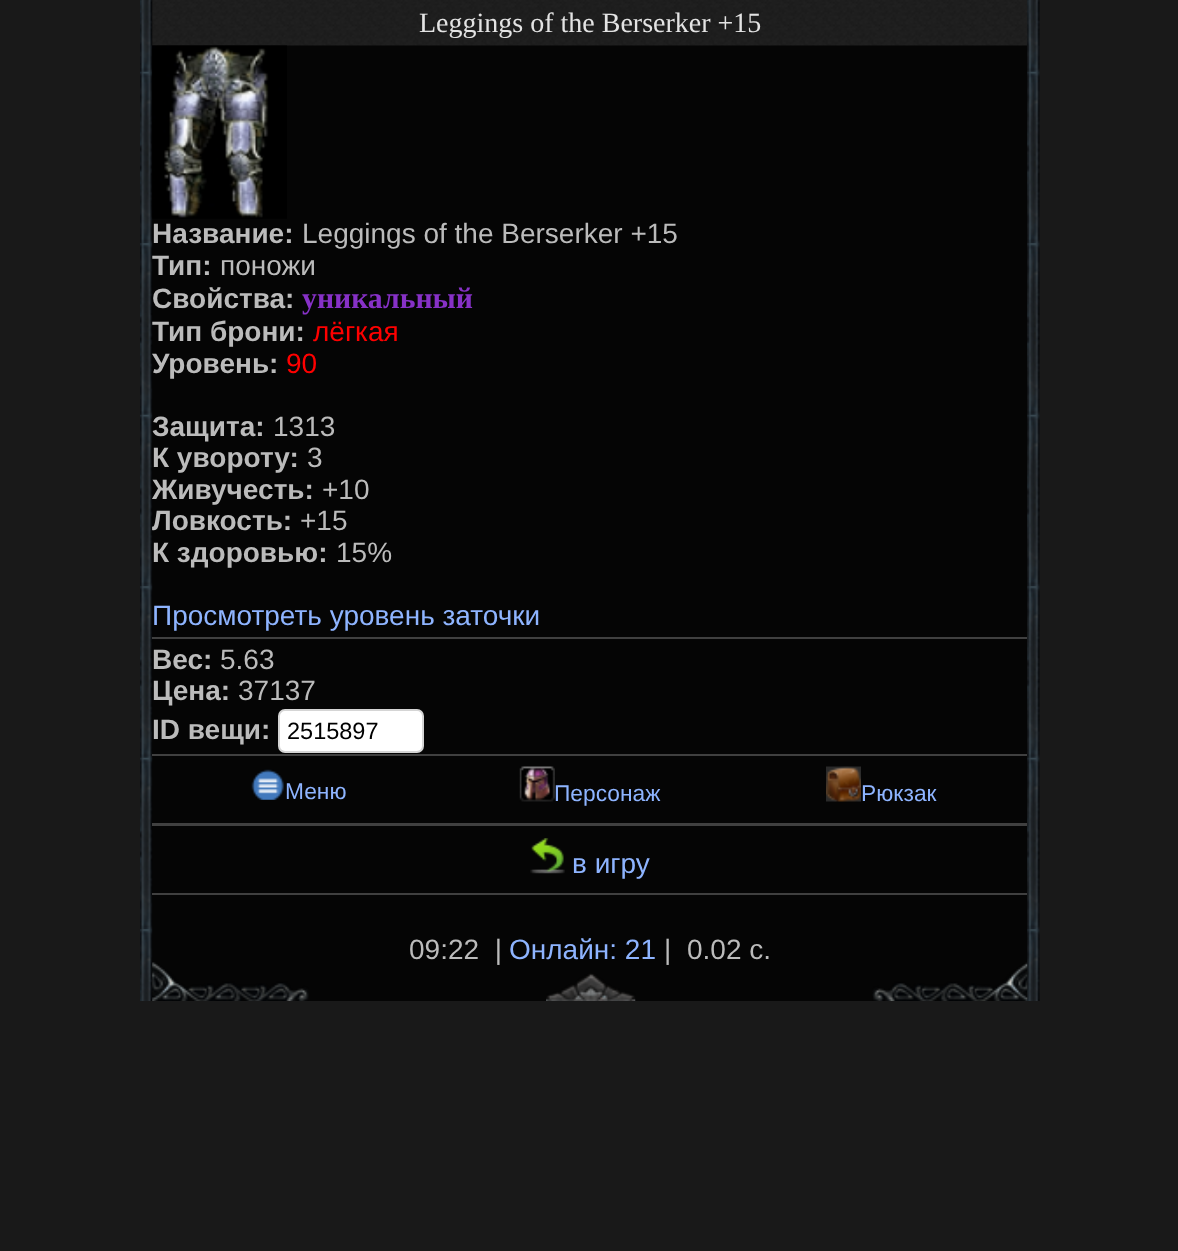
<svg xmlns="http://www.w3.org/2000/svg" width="1178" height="1251">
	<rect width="100%" height="100%" fill="#191919" />
	<rect x="152" y="0" width="875" height="1001" fill="#050505" />
	<image x="140" y="0" width="900" height="1001" href="assets/img1.png" />
	<image x="152" y="0" width="875" height="46" href="assets/img2.png" />
	<text x="419" y="32" font-family="Liberation Serif" font-size="28" fill="#E3E3E3">Leggings of the Berserker +15</text>
	<image x="152" y="45" width="135" height="174" href="assets/img3.png" />
	<text x="152" y="243" font-family="Liberation Sans" font-size="28" font-weight="700" fill="#BBBBBB">Название:</text>
	<text x="302" y="243" font-family="Liberation Sans" font-size="28" fill="#BBBBBB">Leggings of the Berserker +15</text>
	<text x="152" y="275" font-family="Liberation Sans" font-size="28" font-weight="700" fill="#BBBBBB">Тип:</text>
	<text x="220" y="275" font-family="Liberation Sans" font-size="28" fill="#BBBBBB">поножи</text>
	<text x="152" y="308" font-family="Liberation Sans" font-size="28" font-weight="700" fill="#BBBBBB">Свойства:</text>
	<text x="302" y="308" font-family="Liberation Serif" font-size="29.75" font-weight="700" fill="#8731C7">уникальный</text>
	<text x="152" y="341" font-family="Liberation Sans" font-size="28" font-weight="700" fill="#BBBBBB">Тип брони:</text>
	<text x="313" y="341" font-family="Liberation Sans" font-size="28" fill="#FF0000">лёгкая</text>
	<text x="152" y="373" font-family="Liberation Sans" font-size="28" font-weight="700" fill="#BBBBBB">Уровень:</text>
	<text x="286" y="373" font-family="Liberation Sans" font-size="28" fill="#FF0000">90</text>
	<text x="152" y="436" font-family="Liberation Sans" font-size="28" font-weight="700" fill="#BBBBBB">Защита:</text>
	<text x="273" y="436" font-family="Liberation Sans" font-size="28" fill="#BBBBBB">1313</text>
	<text x="152" y="467" font-family="Liberation Sans" font-size="28" font-weight="700" fill="#BBBBBB">К увороту:</text>
	<text x="307" y="467" font-family="Liberation Sans" font-size="28" fill="#BBBBBB">3</text>
	<text x="152" y="499" font-family="Liberation Sans" font-size="28" font-weight="700" fill="#BBBBBB">Живучесть:</text>
	<text x="322" y="499" font-family="Liberation Sans" font-size="28" fill="#BBBBBB">+10</text>
	<text x="152" y="530" font-family="Liberation Sans" font-size="28" font-weight="700" fill="#BBBBBB">Ловкость:</text>
	<text x="300" y="530" font-family="Liberation Sans" font-size="28" fill="#BBBBBB">+15</text>
	<text x="152" y="562" font-family="Liberation Sans" font-size="28" font-weight="700" fill="#BBBBBB">К здоровью:</text>
	<text x="336" y="562" font-family="Liberation Sans" font-size="28" fill="#BBBBBB">15%</text>
	<text x="152" y="625" font-family="Liberation Sans" font-size="28" fill="#8EB4FF">Просмотреть уровень заточки</text>
	<rect x="152" y="637" width="875" height="2" fill="#404040" />
	<text x="152" y="669" font-family="Liberation Sans" font-size="28" font-weight="700" fill="#BBBBBB">Вес:</text>
	<text x="220" y="669" font-family="Liberation Sans" font-size="28" fill="#BBBBBB">5.63</text>
	<text x="152" y="700" font-family="Liberation Sans" font-size="28" font-weight="700" fill="#BBBBBB">Цена:</text>
	<text x="238" y="700" font-family="Liberation Sans" font-size="28" fill="#BBBBBB">37137</text>
	<text x="152" y="739" font-family="Liberation Sans" font-size="28" font-weight="700" fill="#BBBBBB">ID вещи:</text>
	<rect x="279" y="710" width="144" height="42" rx="6" fill="#FFFFFF" stroke="#D5D5D5" stroke-width="2" />
	<text x="287" y="739" font-family="Liberation Sans" font-size="23.5" fill="#000000">2515897</text>
	<rect x="152" y="754" width="875" height="2" fill="#404040" />
	<rect x="152" y="823" width="875" height="3" fill="#404040" />
	<image x="251" y="769" width="33" height="31" href="assets/img4.png" />
	<text x="285" y="799" font-family="Liberation Sans" font-size="22.75" fill="#8EB4FF">Меню</text>
	<image x="519" y="766" width="36" height="36" href="assets/img5.png" />
	<text x="554" y="801" font-family="Liberation Sans" font-size="22.75" fill="#8EB4FF">Персонаж</text>
	<image x="826" y="766" width="35" height="36" href="assets/img6.png" />
	<text x="861" y="801" font-family="Liberation Sans" font-size="22.75" fill="#8EB4FF">Рюкзак</text>
	<rect x="152" y="893" width="875" height="2" fill="#404040" />
	<image x="530" y="838" width="35" height="36" href="assets/img7.png" />
	<text x="572" y="873" font-family="Liberation Sans" font-size="28" fill="#8EB4FF">в игру</text>
	<text x="409" y="959" font-family="Liberation Sans" font-size="28" fill="#BBBBBB" xml:space="preserve">09:22  |</text>
	<text x="509" y="959" font-family="Liberation Sans" font-size="28" fill="#8EB4FF">Онлайн: 21</text>
	<g font-family="Liberation Sans" font-size="28" fill="#BBBBBB">
		<text x="664" y="959">|</text>
		<text x="687" y="959">0.02 с.</text>
	</g>
	<image x="152" y="962" width="157" height="39" href="assets/img8.png" />
	<image x="546" y="973" width="90" height="28" href="assets/img9.png" />
	<image x="872" y="962" width="156" height="39" href="assets/img10.png" />
</svg>
